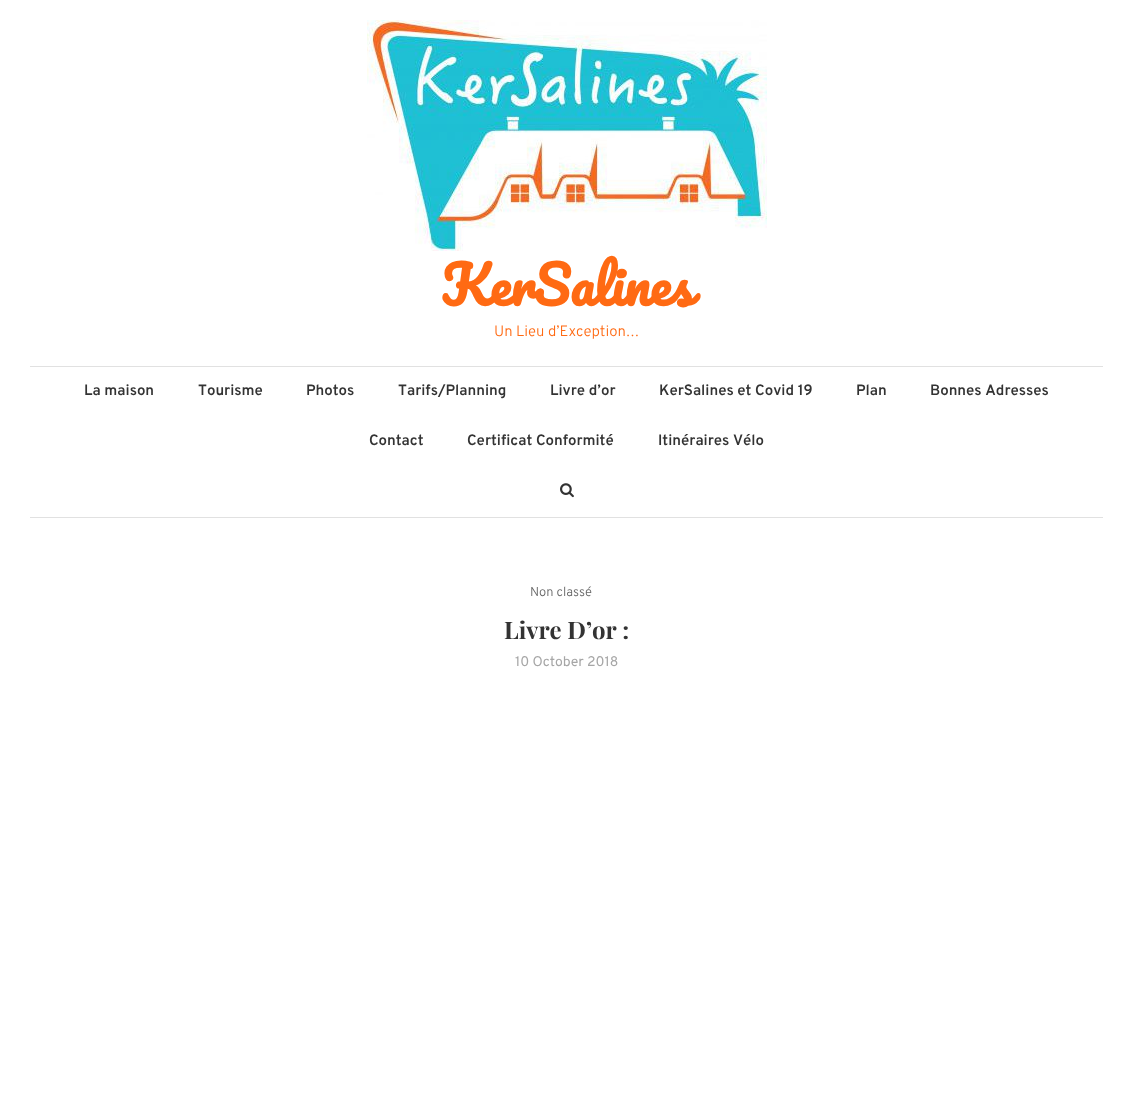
<svg xmlns="http://www.w3.org/2000/svg" width="1133" height="1120">
	<style>*{font-kerning:none!important;font-variant-ligatures:none!important}</style>
	<rect width="100%" height="100%" fill="#FFFFFF" />
	<image x="367" y="20" width="400" height="231" href="assets/img1.png" />
	<text x="441" y="306" font-family="Pacifico" font-size="52" font-weight="700" fill="#FF6A13">KerSalines</text>
	<text x="494" y="336" font-family="Overpass" font-size="15" font-weight="300" fill="#FF6A13">Un Lieu d’Exception…</text>
	<rect x="30" y="366" width="1073" height="1" fill="#E1E1E1" />
	<rect x="30" y="517" width="1073" height="1" fill="#E1E1E1" />
	<g font-family="Overpass" font-size="15" font-weight="600" fill="#333333">
		<text x="84" y="395">La maison</text>
		<text x="198" y="395">Tourisme</text>
		<text x="306" y="395">Photos</text>
		<text x="398" y="395">Tarifs/Planning</text>
		<text x="550" y="395">Livre d’or</text>
		<text x="659" y="395">KerSalines et Covid 19</text>
		<text x="856" y="395">Plan</text>
		<text x="930" y="395">Bonnes Adresses</text>
		<text x="369" y="445">Contact</text>
		<text x="467" y="445">Certificat Conformité</text>
		<text x="658" y="445">Itinéraires Vélo</text>
	</g>
	<image x="560" y="483" width="14" height="15" href="assets/img2.png" />
	<text x="530" y="596" font-family="Overpass" font-size="13" font-weight="300" fill="#666666">Non classé</text>
	<text x="504" y="639" font-family="Playfair Display" font-size="24" font-weight="700" fill="#333333">Livre D’or :</text>
	<text x="515" y="666" font-family="Overpass" font-size="14" fill="#A6A6A6">10 October 2018</text>
</svg>
